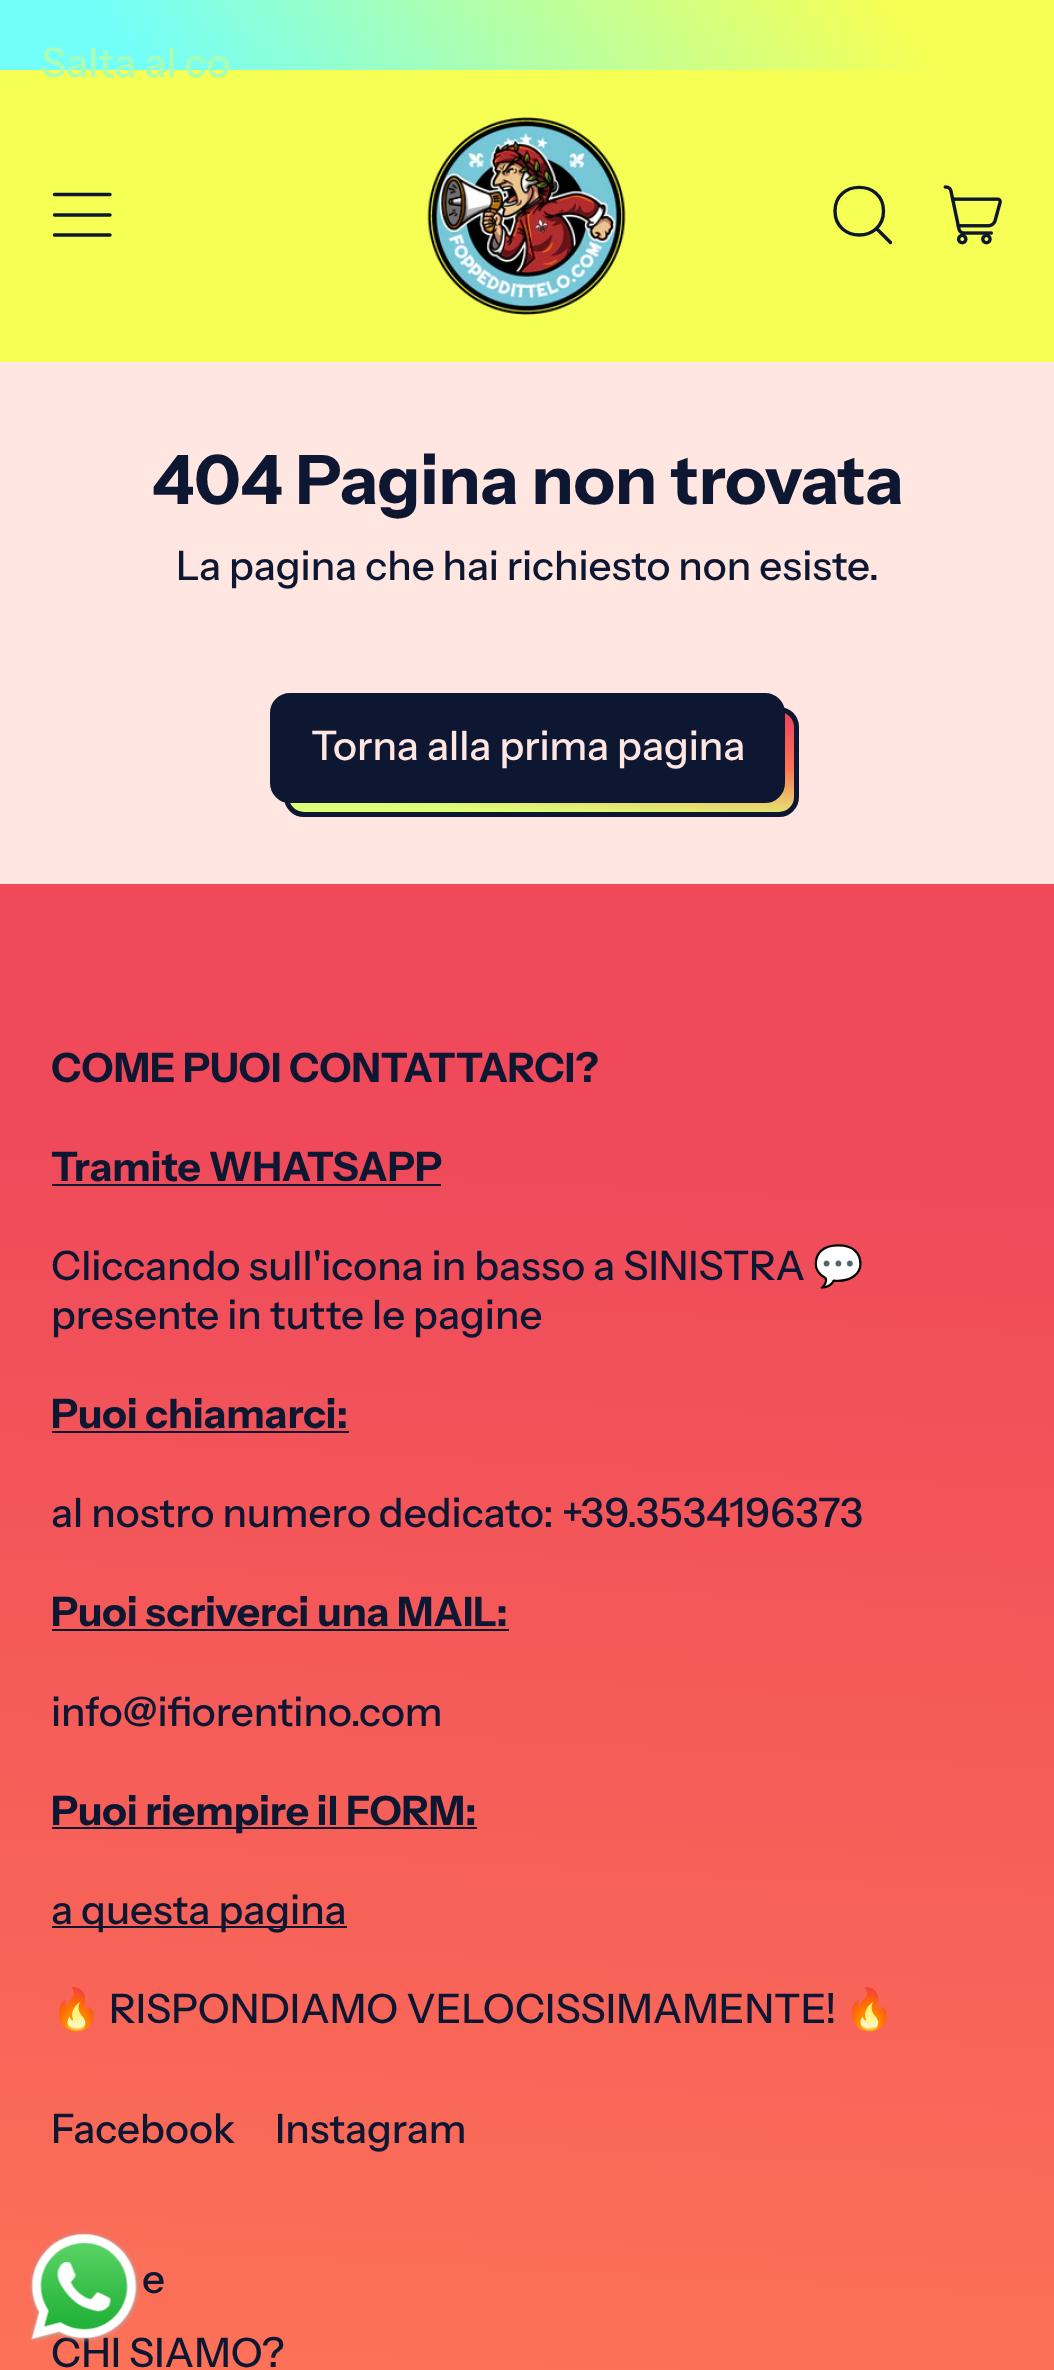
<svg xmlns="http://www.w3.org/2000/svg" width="1054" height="2370">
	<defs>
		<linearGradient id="g1" gradientUnits="userSpaceOnUse" x1="166" y1="298" x2="890" y2="-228"><stop offset="0.13" stop-color="#72FFF9" /><stop offset="0.85" stop-color="#F6FF54" /></linearGradient>
		<clipPath id="clip1"><rect x="284" y="707" width="515" height="110" rx="20" /></clipPath>
		<linearGradient id="g2" gradientUnits="userSpaceOnUse" x1="538" y1="825" x2="544" y2="698"><stop offset="0.1" stop-color="#DDFF77" /><stop offset="0.54" stop-color="#FD7457" /><stop offset="0.92" stop-color="#EF495A" /></linearGradient>
		<linearGradient id="g3" gradientUnits="userSpaceOnUse" x1="436" y1="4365" x2="619" y2="861"><stop offset="0.1" stop-color="#DDFF77" /><stop offset="0.54" stop-color="#FD7457" /><stop offset="0.92" stop-color="#EF495A" /></linearGradient>
	</defs>
	<rect width="100%" height="100%" fill="#FFE6E1" />
	<rect x="0" y="0" width="1054" height="70" fill="url(#g1)" />
	<rect x="0" y="70" width="1054" height="292" fill="#F6FF54" />
	<text x="41" y="77" font-family="Instrument Sans" font-size="40.5" font-weight="500" fill="#A8FFB6">Salta al co</text>
	<path d="M110 235H54.5M110 215H54.5M110 194.5H54.5" fill="none" stroke="#0E1732" stroke-width="3.4" stroke-linecap="round" stroke-linejoin="round" />
	<image x="427" y="117" width="199" height="198" href="assets/img1.png" />
	<path d="M835 211C835 243 883.5 243 883.5 211C883.5 179.5 835 179.5 835 211ZM890.5 242.5L876.5 228.5" fill="none" stroke="#0E1732" stroke-width="3.4" stroke-linecap="round" stroke-linejoin="round" />
	<image x="943" y="185" width="59" height="60" href="assets/img2.png" />
	<text x="152" y="504" font-family="Instrument Sans" font-size="68.1" font-weight="700" fill="#0E1732">404 Pagina non trovata</text>
	<text x="176" y="580" font-family="Instrument Sans" font-size="40.5" font-weight="500" fill="#0E1732">La pagina che hai richiesto non esiste.</text>
	<g clip-path="url(#clip1)">
		<rect x="288" y="711" width="506" height="101" fill="url(#g2)" />
	</g>
	<rect x="286.5" y="709.5" width="510" height="105" rx="17.5" fill="none" stroke="#0E1732" stroke-width="5" />
	<rect x="272.5" y="695.5" width="510" height="105" rx="17.5" fill="#0E1732" stroke="#0E1732" stroke-width="5" />
	<text x="311" y="760" font-family="Instrument Sans" font-size="40.5" font-weight="500" fill="#FFE6E1">Torna alla prima pagina</text>
	<rect x="0" y="884" width="1054" height="1486" fill="url(#g3)" />
	<g font-family="Instrument Sans" font-size="40.5" font-weight="700" fill="#0E1732">
		<text x="51" y="1082">COME PUOI CONTATTARCI?</text>
		<text x="51" y="1181">Tramite WHATSAPP</text>
	</g>
	<rect x="52" y="1184" width="389" height="2" fill="#0E1732" />
	<text x="51" y="1280" font-family="Instrument Sans" font-size="40.5" font-weight="500" fill="#0E1732">Cliccando sull'icona in basso a SINISTRA</text>
	<text x="813" y="1280" font-family="Noto Color Emoji" font-size="40.5" fill="#0E1732">💬</text>
	<text x="51" y="1329" font-family="Instrument Sans" font-size="40.5" font-weight="500" fill="#0E1732">presente in tutte le pagine</text>
	<text x="51" y="1428" font-family="Instrument Sans" font-size="40.5" font-weight="700" fill="#0E1732">Puoi chiamarci:</text>
	<rect x="52" y="1431" width="297" height="2" fill="#0E1732" />
	<text x="51" y="1527" font-family="Instrument Sans" font-size="40.5" font-weight="500" fill="#0E1732">al nostro numero dedicato: +39.3534196373</text>
	<text x="51" y="1626" font-family="Instrument Sans" font-size="40.5" font-weight="700" fill="#0E1732">Puoi scriverci una MAIL:</text>
	<rect x="52" y="1629" width="457" height="2" fill="#0E1732" />
	<text x="51" y="1726" font-family="Instrument Sans" font-size="40.5" font-weight="500" fill="#0E1732">info@ifiorentino.com</text>
	<rect x="52" y="1827" width="425" height="2" fill="#0E1732" />
	<text x="51" y="1825" font-family="Instrument Sans" font-size="40.5" font-weight="700" fill="#0E1732">Puoi riempire il FORM:</text>
	<rect x="52" y="1926" width="295" height="2" fill="#0E1732" />
	<text x="51" y="1924" font-family="Instrument Sans" font-size="40.5" font-weight="500" fill="#0E1732">a questa pagina</text>
	<text x="51" y="2023" font-family="Noto Color Emoji" font-size="40.5" fill="#0E1732">🔥</text>
	<text x="109" y="2023" font-family="Instrument Sans" font-size="40.5" font-weight="500" fill="#0E1732">RISPONDIAMO VELOCISSIMAMENTE!</text>
	<text x="844" y="2023" font-family="Noto Color Emoji" font-size="40.5" fill="#0E1732">🔥</text>
	<g font-family="Instrument Sans" font-size="40.5" font-weight="500" fill="#0E1732">
		<text x="51" y="2143">Facebook</text>
		<text x="275" y="2143">Instagram</text>
		<text x="142" y="2293">e</text>
		<text x="51" y="2367">CHI SIAMO?</text>
	</g>
	<image x="28" y="2231" width="113" height="112" href="assets/img3.png" />
</svg>
